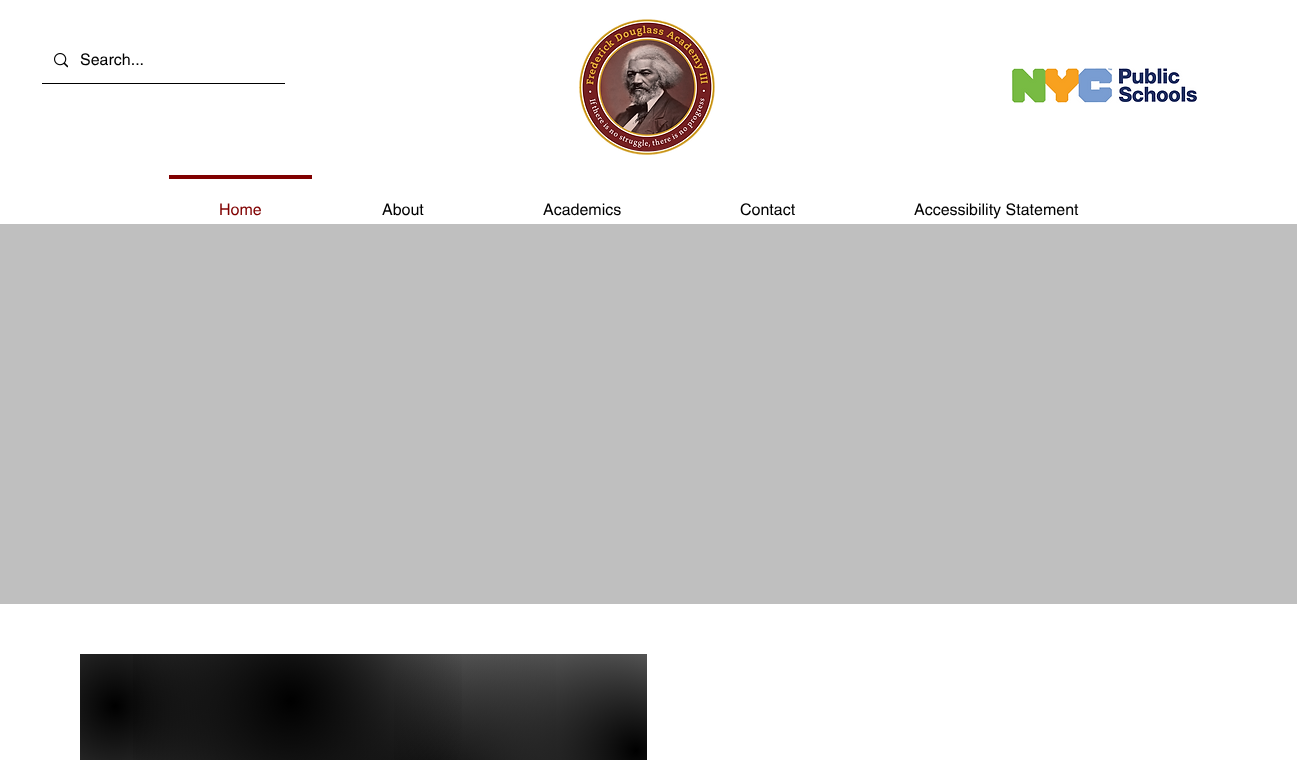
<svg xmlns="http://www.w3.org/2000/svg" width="1297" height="760">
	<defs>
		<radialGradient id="g1" gradientUnits="userSpaceOnUse" cx="430" cy="810" r="436"><stop offset="0" stop-color="#000000" /><stop offset="0.7" stop-color="#FFFFFF" /></radialGradient>
		<radialGradient id="g2" gradientUnits="userSpaceOnUse" cx="115" cy="706" r="644"><stop offset="0" stop-color="#000000" /><stop offset="0.7" stop-color="#000000" stop-opacity="0" /></radialGradient>
		<radialGradient id="g3" gradientUnits="userSpaceOnUse" cx="636" cy="751" r="641"><stop offset="0" stop-color="#000000" /><stop offset="0.4" stop-color="#000000" stop-opacity="0" /></radialGradient>
		<radialGradient id="g4" gradientUnits="userSpaceOnUse" cx="291" cy="701" r="513"><stop offset="0" stop-color="#000000" /><stop offset="0.35" stop-color="#000000" stop-opacity="0" /></radialGradient>
	</defs>
	<rect width="100%" height="100%" fill="#FFFFFF" />
	<rect x="42" y="83" width="243" height="1" fill="#000000" />
	<image x="54" y="53" width="14" height="15" href="assets/img1.png" />
	<text x="80" y="65" font-family="helvetica" font-size="16" fill="#000000">Search...</text>
	<image x="579" y="19" width="136" height="136" href="assets/img2.png" />
	<image x="1012" y="68" width="185" height="35" href="assets/img3.png" />
	<rect x="169" y="175" width="143" height="4" fill="#800000" />
	<text x="219" y="215" font-family="helvetica" font-size="16" fill="#800000">Home</text>
	<g font-family="helvetica" font-size="16" fill="#000000">
		<text x="382" y="215">About</text>
		<text x="543" y="215">Academics</text>
		<text x="740" y="215">Contact</text>
		<text x="914" y="215">Accessibility Statement</text>
	</g>
	<rect x="0" y="224" width="1297" height="380" fill="#BFBFBF" />
	<rect x="132" y="654" width="515" height="106" fill="url(#g1)" />
	<rect x="80" y="654" width="476" height="106" fill="url(#g2)" />
	<rect x="394" y="654" width="253" height="106" fill="url(#g3)" />
	<rect x="133" y="654" width="329" height="106" fill="url(#g4)" />
</svg>
